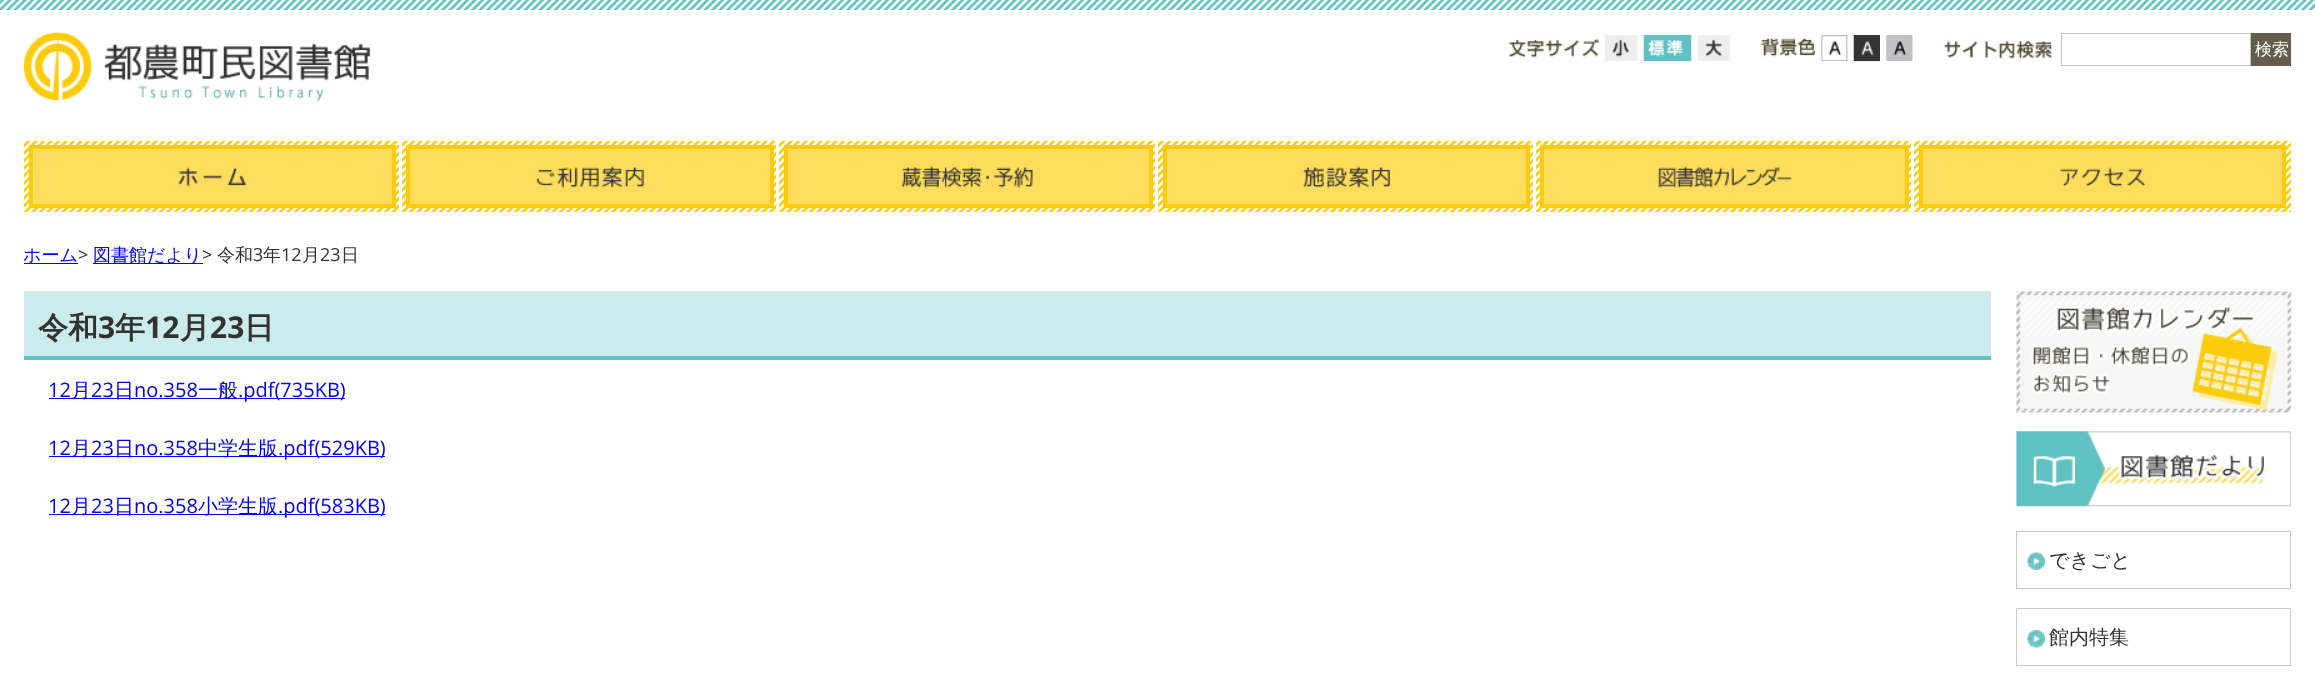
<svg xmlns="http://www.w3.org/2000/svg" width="2315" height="685">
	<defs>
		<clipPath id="clip1"><rect x="24" y="140" width="2267" height="79" /></clipPath>
	</defs>
	<rect width="100%" height="100%" fill="#FFFFFF" />
	<image x="0" y="0" width="2315" height="10" href="assets/img1.png" />
	<image x="23" y="32" width="348" height="70" href="assets/img2.png" />
	<image x="1508" y="38" width="91" height="20" href="assets/img3.png" />
	<image x="1605" y="35" width="33" height="26" href="assets/img4.png" />
	<image x="1643" y="35" width="49" height="27" href="assets/img5.png" />
	<image x="1697" y="35" width="33" height="26" href="assets/img6.png" />
	<image x="1761" y="38" width="54" height="19" href="assets/img7.png" />
	<image x="1821" y="35" width="27" height="27" href="assets/img8.png" />
	<image x="1853" y="35" width="27" height="27" href="assets/img9.png" />
	<image x="1886" y="35" width="27" height="27" href="assets/img10.png" />
	<image x="1943" y="41" width="109" height="18" href="assets/img11.png" />
	<rect x="2061.5" y="33.5" width="189" height="32" fill="none" stroke="#C1C1C1" />
	<rect x="2251" y="33" width="40" height="33" fill="#655C4B" />
	<text x="2255" y="55" font-family="WenQuanYi Zen Hei" font-size="17" font-weight="500" fill="#FFFFFF">検索</text>
	<image x="23" y="140" width="376" height="73" href="assets/img12.png" />
	<rect x="33" y="149" width="359" height="55" fill="#FDDD5B" />
	<image x="178" y="167" width="69" height="20" href="assets/img13.png" />
	<rect x="31" y="147" width="363" height="59" fill="none" stroke="#FCCB0D" stroke-width="4" />
	<g clip-path="url(#clip1)">
		<rect x="22.5" y="139.5" width="380" height="74" fill="none" stroke="#FFFFFF" stroke-width="3" />
	</g>
	<image x="402" y="141" width="374" height="71" href="assets/img14.png" />
	<rect x="410" y="149" width="360" height="55" fill="#FDDD5B" />
	<image x="536" y="166" width="108" height="22" href="assets/img15.png" />
	<rect x="408" y="147" width="364" height="59" fill="none" stroke="#FCCB0D" stroke-width="4" />
	<image x="779" y="141" width="376" height="71" href="assets/img16.png" />
	<rect x="788" y="149" width="361" height="55" fill="#FDDD5B" />
	<image x="901" y="166" width="132" height="22" href="assets/img17.png" />
	<rect x="786" y="147" width="365" height="59" fill="none" stroke="#FCCB0D" stroke-width="4" />
	<image x="1158" y="141" width="375" height="71" href="assets/img18.png" />
	<rect x="1167" y="149" width="359" height="55" fill="#FDDD5B" />
	<image x="1303" y="166" width="87" height="22" href="assets/img19.png" />
	<rect x="1165" y="147" width="363" height="59" fill="none" stroke="#FCCB0D" stroke-width="4" />
	<image x="1536" y="141" width="375" height="71" href="assets/img20.png" />
	<rect x="1544" y="149" width="361" height="55" fill="#FDDD5B" />
	<image x="1658" y="166" width="134" height="22" href="assets/img21.png" />
	<rect x="1542" y="147" width="365" height="59" fill="none" stroke="#FCCB0D" stroke-width="4" />
	<image x="1914" y="141" width="378" height="71" href="assets/img22.png" />
	<rect x="1923" y="149" width="359" height="55" fill="#FDDD5B" />
	<image x="2060" y="167" width="85" height="20" href="assets/img23.png" />
	<rect x="1921" y="147" width="363" height="59" fill="none" stroke="#FCCB0D" stroke-width="4" />
	<text x="23" y="261" font-family="WenQuanYi Zen Hei" font-size="18" font-weight="500" fill="#0000EE">ホーム</text>
	<rect x="24" y="263" width="54" height="1" fill="#0000EE" />
	<text x="78" y="261" font-family="Open Sans" font-size="18" fill="#333333">&gt;</text>
	<rect x="93" y="263" width="110" height="1" fill="#0000EE" />
	<text x="93" y="261" font-family="WenQuanYi Zen Hei" font-size="18" font-weight="500" fill="#0000EE">図書館だより</text>
	<text x="202" y="261" font-family="Open Sans" font-size="18" fill="#333333">&gt;</text>
	<text x="217" y="261" font-family="WenQuanYi Zen Hei" font-size="18" font-weight="500" fill="#333333">令和</text>
	<text x="253" y="261" font-family="Open Sans" font-size="18" fill="#333333">3</text>
	<text x="263" y="261" font-family="WenQuanYi Zen Hei" font-size="18" font-weight="500" fill="#333333">年</text>
	<text x="281" y="261" font-family="Open Sans" font-size="18" fill="#333333">12</text>
	<text x="302" y="261" font-family="WenQuanYi Zen Hei" font-size="18" font-weight="500" fill="#333333">月</text>
	<text x="320" y="261" font-family="Open Sans" font-size="18" fill="#333333">23</text>
	<text x="341" y="261" font-family="WenQuanYi Zen Hei" font-size="18" font-weight="500" fill="#333333">日</text>
	<rect x="24" y="291" width="1967" height="65" fill="#CCEBEC" />
	<rect x="24" y="356" width="1967" height="4" fill="#61C0C2" />
	<text x="38" y="338" font-family="WenQuanYi Zen Hei" font-size="30" font-weight="700" fill="#333333">令和</text>
	<text x="98" y="338" font-family="Open Sans" font-size="30" font-weight="700" fill="#333333">3</text>
	<text x="115" y="338" font-family="WenQuanYi Zen Hei" font-size="30" font-weight="700" fill="#333333">年</text>
	<text x="145" y="338" font-family="Open Sans" font-size="30" font-weight="700" fill="#333333">12</text>
	<text x="180" y="338" font-family="WenQuanYi Zen Hei" font-size="30" font-weight="700" fill="#333333">月</text>
	<text x="210" y="338" font-family="Open Sans" font-size="30" font-weight="700" fill="#333333">23</text>
	<text x="244" y="338" font-family="WenQuanYi Zen Hei" font-size="30" font-weight="700" fill="#333333">日</text>
	<text x="48" y="397" font-family="Open Sans" font-size="20" fill="#0000EE">12</text>
	<rect x="49" y="398" width="296" height="1" fill="#0000EE" />
	<text x="71" y="397" font-family="WenQuanYi Zen Hei" font-size="20" font-weight="500" fill="#0000EE">月</text>
	<text x="91" y="397" font-family="Open Sans" font-size="20" fill="#0000EE">23</text>
	<text x="114" y="397" font-family="WenQuanYi Zen Hei" font-size="20" font-weight="500" fill="#0000EE">日</text>
	<text x="134" y="397" font-family="Open Sans" font-size="20" fill="#0000EE">no.358</text>
	<text x="198" y="397" font-family="WenQuanYi Zen Hei" font-size="20" font-weight="500" fill="#0000EE">一般</text>
	<g font-family="Open Sans" font-size="20" fill="#0000EE">
		<text x="238" y="397">.pdf(735KB)</text>
		<text x="48" y="455">12</text>
	</g>
	<rect x="49" y="456" width="336" height="1" fill="#0000EE" />
	<text x="71" y="455" font-family="WenQuanYi Zen Hei" font-size="20" font-weight="500" fill="#0000EE">月</text>
	<text x="91" y="455" font-family="Open Sans" font-size="20" fill="#0000EE">23</text>
	<text x="114" y="455" font-family="WenQuanYi Zen Hei" font-size="20" font-weight="500" fill="#0000EE">日</text>
	<text x="134" y="455" font-family="Open Sans" font-size="20" fill="#0000EE">no.358</text>
	<text x="198" y="455" font-family="WenQuanYi Zen Hei" font-size="20" font-weight="500" fill="#0000EE">中学生版</text>
	<g font-family="Open Sans" font-size="20" fill="#0000EE">
		<text x="278" y="455">.pdf(529KB)</text>
		<text x="48" y="513">12</text>
	</g>
	<rect x="49" y="514" width="336" height="1" fill="#0000EE" />
	<text x="71" y="513" font-family="WenQuanYi Zen Hei" font-size="20" font-weight="500" fill="#0000EE">月</text>
	<text x="91" y="513" font-family="Open Sans" font-size="20" fill="#0000EE">23</text>
	<text x="114" y="513" font-family="WenQuanYi Zen Hei" font-size="20" font-weight="500" fill="#0000EE">日</text>
	<text x="134" y="513" font-family="Open Sans" font-size="20" fill="#0000EE">no.358</text>
	<text x="198" y="513" font-family="WenQuanYi Zen Hei" font-size="20" font-weight="500" fill="#0000EE">小学生版</text>
	<text x="278" y="513" font-family="Open Sans" font-size="20" fill="#0000EE">.pdf(583KB)</text>
	<image x="2016" y="291" width="276" height="122" href="assets/img24.png" />
	<image x="2016" y="431" width="275" height="76" href="assets/img25.png" />
	<rect x="2016.5" y="531.5" width="274" height="57" fill="none" stroke="#CCCCCC" />
	<image x="2027" y="552" width="18" height="18" href="assets/img26.png" />
	<text x="2049" y="567" font-family="WenQuanYi Zen Hei" font-size="20" font-weight="500" fill="#333333">できごと</text>
	<rect x="2016.5" y="608.5" width="274" height="57" fill="none" stroke="#CCCCCC" />
	<image x="2027" y="630" width="18" height="18" href="assets/img27.png" />
	<text x="2049" y="644" font-family="WenQuanYi Zen Hei" font-size="20" font-weight="500" fill="#333333">館内特集</text>
</svg>
